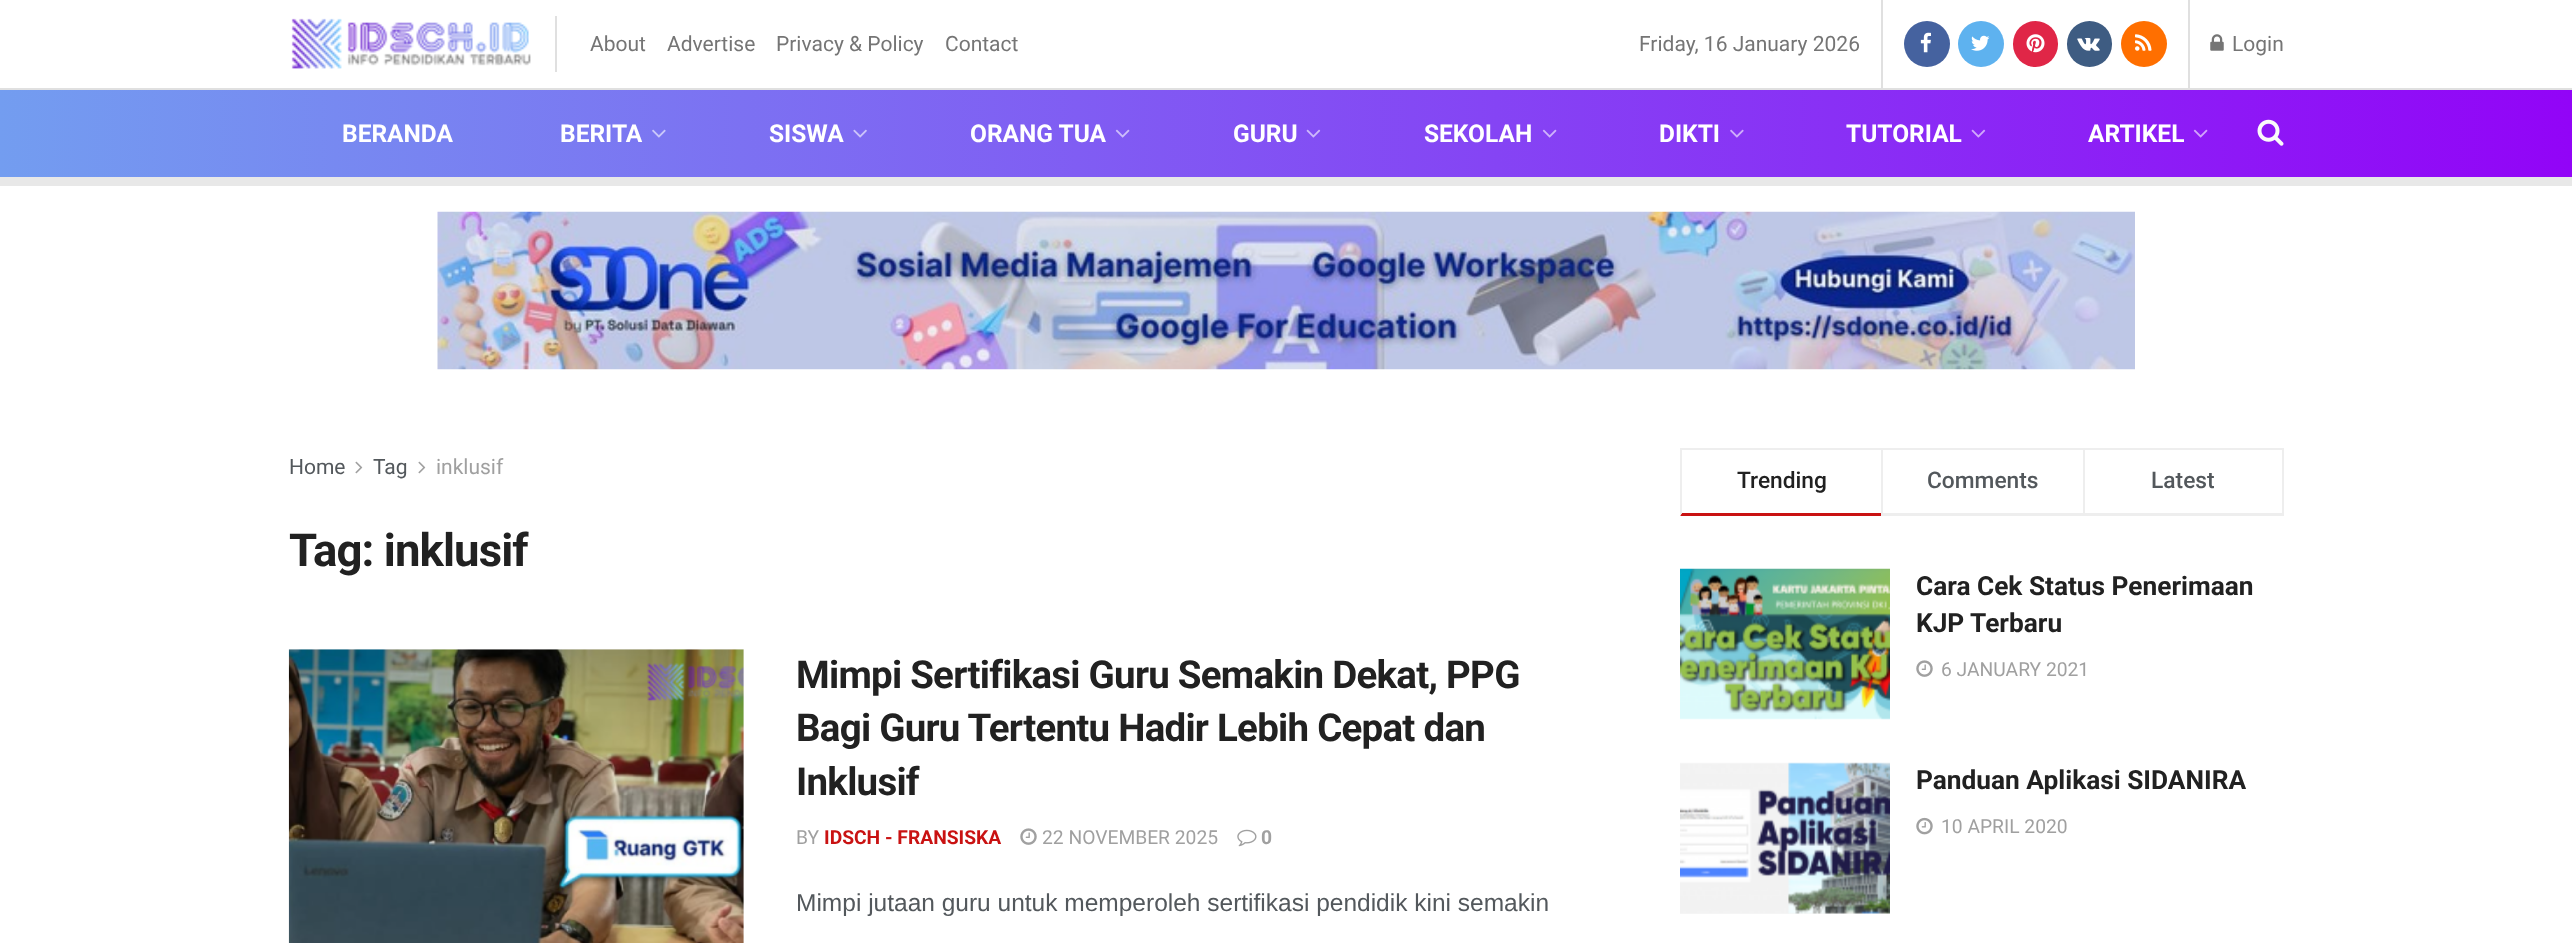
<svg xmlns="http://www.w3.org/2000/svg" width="2572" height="943">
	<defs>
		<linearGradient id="g1" gradientUnits="userSpaceOnUse" x1="0" y1="133" x2="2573" y2="133"><stop offset="0" stop-color="#739DF0" /><stop offset="1" stop-color="#9204F7" /></linearGradient>
	</defs>
	<rect width="100%" height="100%" fill="#FFFFFF" />
	<rect x="0" y="88" width="2572" height="2" fill="#E0E0E0" />
	<rect x="555" y="16" width="2" height="56" fill="#E0E0E0" />
	<image x="291" y="18" width="240" height="51" href="assets/img1.png" />
	<g font-family="Roboto" font-size="21" fill="#757575">
		<text x="590" y="51">About</text>
		<text x="667" y="51">Advertise</text>
		<text x="776" y="51">Privacy &amp; Policy</text>
		<text x="945" y="51">Contact</text>
	</g>
	<rect x="1881" y="0" width="2" height="88" fill="#E0E0E0" />
	<text x="1639" y="51" font-family="Roboto" font-size="21" fill="#757575">Friday, 16 January 2026</text>
	<rect x="2188" y="0" width="2" height="88" fill="#E0E0E0" />
	<circle cx="1927" cy="44" r="23" fill="#45629F" />
	<image x="1920" y="32" width="11" height="21" href="assets/img2.png" />
	<circle cx="1981" cy="44" r="23" fill="#5EB2EF" />
	<image x="1971" y="35" width="19" height="16" href="assets/img3.png" />
	<rect x="2013" y="21" width="45" height="46" rx="22.5" fill="#E02647" />
	<image x="2026" y="34" width="19" height="19" href="assets/img4.png" />
	<rect x="2067" y="21" width="45" height="46" rx="22.5" fill="#3E5C82" />
	<image x="2077" y="37" width="23" height="14" href="assets/img5.png" />
	<circle cx="2144" cy="44" r="23" fill="#FF6F00" />
	<image x="2135" y="34" width="17" height="17" href="assets/img6.png" />
	<image x="2210" y="34" width="14" height="17" href="assets/img7.png" />
	<text x="2232" y="51" font-family="Roboto" font-size="21" fill="#757575">Login</text>
	<rect x="0" y="90" width="2572" height="87" fill="url(#g1)" />
	<rect x="0" y="177" width="2572" height="9" fill="#E8E8E8" />
	<g font-family="Roboto" font-size="24.5" font-weight="700" fill="#FFFFFF">
		<text x="342" y="142">BERANDA</text>
		<text x="560" y="142">BERITA</text>
	</g>
	<image x="652" y="129" width="14" height="9" href="assets/img8.png" />
	<text x="769" y="142" font-family="Roboto" font-size="24.5" font-weight="700" fill="#FFFFFF">SISWA</text>
	<image x="853" y="129" width="14" height="9" href="assets/img9.png" />
	<text x="970" y="142" font-family="Roboto" font-size="24.5" font-weight="700" fill="#FFFFFF">ORANG TUA</text>
	<image x="1115" y="129" width="15" height="9" href="assets/img10.png" />
	<text x="1233" y="142" font-family="Roboto" font-size="24.5" font-weight="700" fill="#FFFFFF">GURU</text>
	<image x="1306" y="129" width="15" height="9" href="assets/img11.png" />
	<text x="1424" y="142" font-family="Roboto" font-size="24.5" font-weight="700" fill="#FFFFFF">SEKOLAH</text>
	<image x="1542" y="129" width="15" height="9" href="assets/img12.png" />
	<text x="1659" y="142" font-family="Roboto" font-size="24.5" font-weight="700" fill="#FFFFFF">DIKTI</text>
	<image x="1730" y="129" width="14" height="9" href="assets/img13.png" />
	<text x="1846" y="142" font-family="Roboto" font-size="24.5" font-weight="700" fill="#FFFFFF">TUTORIAL</text>
	<image x="1971" y="129" width="15" height="9" href="assets/img14.png" />
	<text x="2088" y="142" font-family="Roboto" font-size="24.5" font-weight="700" fill="#FFFFFF">ARTIKEL</text>
	<image x="2193" y="129" width="15" height="9" href="assets/img15.png" />
	<image x="2257" y="119" width="27" height="27" href="assets/img16.png" />
	<image x="437" y="211" width="1698" height="159" href="assets/img17.png" />
	<text x="289" y="474" font-family="Roboto" font-size="21" fill="#53585C">Home</text>
	<image x="355" y="461" width="8" height="13" href="assets/img18.png" />
	<text x="373" y="474" font-family="Roboto" font-size="21" fill="#53585C">Tag</text>
	<image x="418" y="461" width="8" height="13" href="assets/img18.png" />
	<text x="436" y="474" font-family="Roboto" font-size="21" fill="#A0A0A0">inklusif</text>
	<text x="289" y="566" font-family="Roboto" font-size="45.5" font-weight="700" letter-spacing="-0.9" fill="#212121">Tag: inklusif</text>
	<rect x="289" y="649" width="455" height="294" fill="#F7F7F7" />
	<image x="288" y="649" width="456" height="294" href="assets/img19.png" />
	<g font-family="Roboto" font-size="38.5" font-weight="700" letter-spacing="-0.75" fill="#212121">
		<text x="796" y="688">Mimpi Sertifikasi Guru Semakin Dekat, PPG</text>
		<text x="796" y="741">Bagi Guru Tertentu Hadir Lebih Cepat dan</text>
		<text x="796" y="795">Inklusif</text>
	</g>
	<text x="796" y="844" font-family="Roboto" font-size="19.25" fill="#A0A0A0">BY</text>
	<text x="824" y="844" font-family="Roboto" font-size="19.25" font-weight="700" fill="#C91212">IDSCH - FRANSISKA</text>
	<image x="1020" y="828" width="17" height="17" href="assets/img20.png" />
	<text x="1042" y="844" font-family="Roboto" font-size="19.25" fill="#A0A0A0">22 NOVEMBER 2025</text>
	<image x="1237" y="829" width="20" height="18" href="assets/img21.png" />
	<text x="1261" y="844" font-family="Roboto" font-size="19.25" font-weight="700" fill="#A0A0A0">0</text>
	<text x="796" y="911" font-family="Liberation Sans" font-size="24.5" fill="#53585C">Mimpi jutaan guru untuk memperoleh sertifikasi pendidik kini semakin</text>
	<rect x="1680" y="448" width="604" height="2" fill="#EEEEEE" />
	<path d="M1881 516H1680L1682 513H1881Z" fill="#C91212" />
	<path d="M1680 516V448L1682 450V513Z" fill="#EEEEEE" />
	<text x="1737" y="488" font-family="Roboto" font-size="22.75" font-weight="500" fill="#212121">Trending</text>
	<rect x="1881" y="513" width="202" height="3" fill="#EEEEEE" />
	<rect x="1881" y="448" width="2" height="68" fill="#EEEEEE" />
	<text x="1927" y="488" font-family="Roboto" font-size="22.75" font-weight="500" fill="#53585C">Comments</text>
	<rect x="2282" y="448" width="2" height="68" fill="#EEEEEE" />
	<rect x="2083" y="513" width="201" height="3" fill="#EEEEEE" />
	<rect x="2083" y="448" width="2" height="68" fill="#EEEEEE" />
	<text x="2151" y="488" font-family="Roboto" font-size="22.75" font-weight="500" fill="#53585C">Latest</text>
	<image x="1680" y="568" width="210" height="152" href="assets/img22.png" />
	<g font-family="Roboto" font-size="26.25" font-weight="700" fill="#212121">
		<text x="1916" y="595">Cara Cek Status Penerimaan</text>
		<text x="1916" y="632">KJP Terbaru</text>
	</g>
	<image x="1916" y="660" width="17" height="17" href="assets/img20.png" />
	<text x="1941" y="676" font-family="Roboto" font-size="19.25" fill="#A0A0A0">6 JANUARY 2021</text>
	<rect x="1680" y="763" width="210" height="151" fill="#F7F7F7" />
	<image x="1680" y="762" width="210" height="152" href="assets/img23.png" />
	<text x="1916" y="789" font-family="Roboto" font-size="26.25" font-weight="700" fill="#212121">Panduan Aplikasi SIDANIRA</text>
	<image x="1916" y="817" width="17" height="18" href="assets/img24.png" />
	<text x="1941" y="833" font-family="Roboto" font-size="19.25" fill="#A0A0A0">10 APRIL 2020</text>
</svg>
